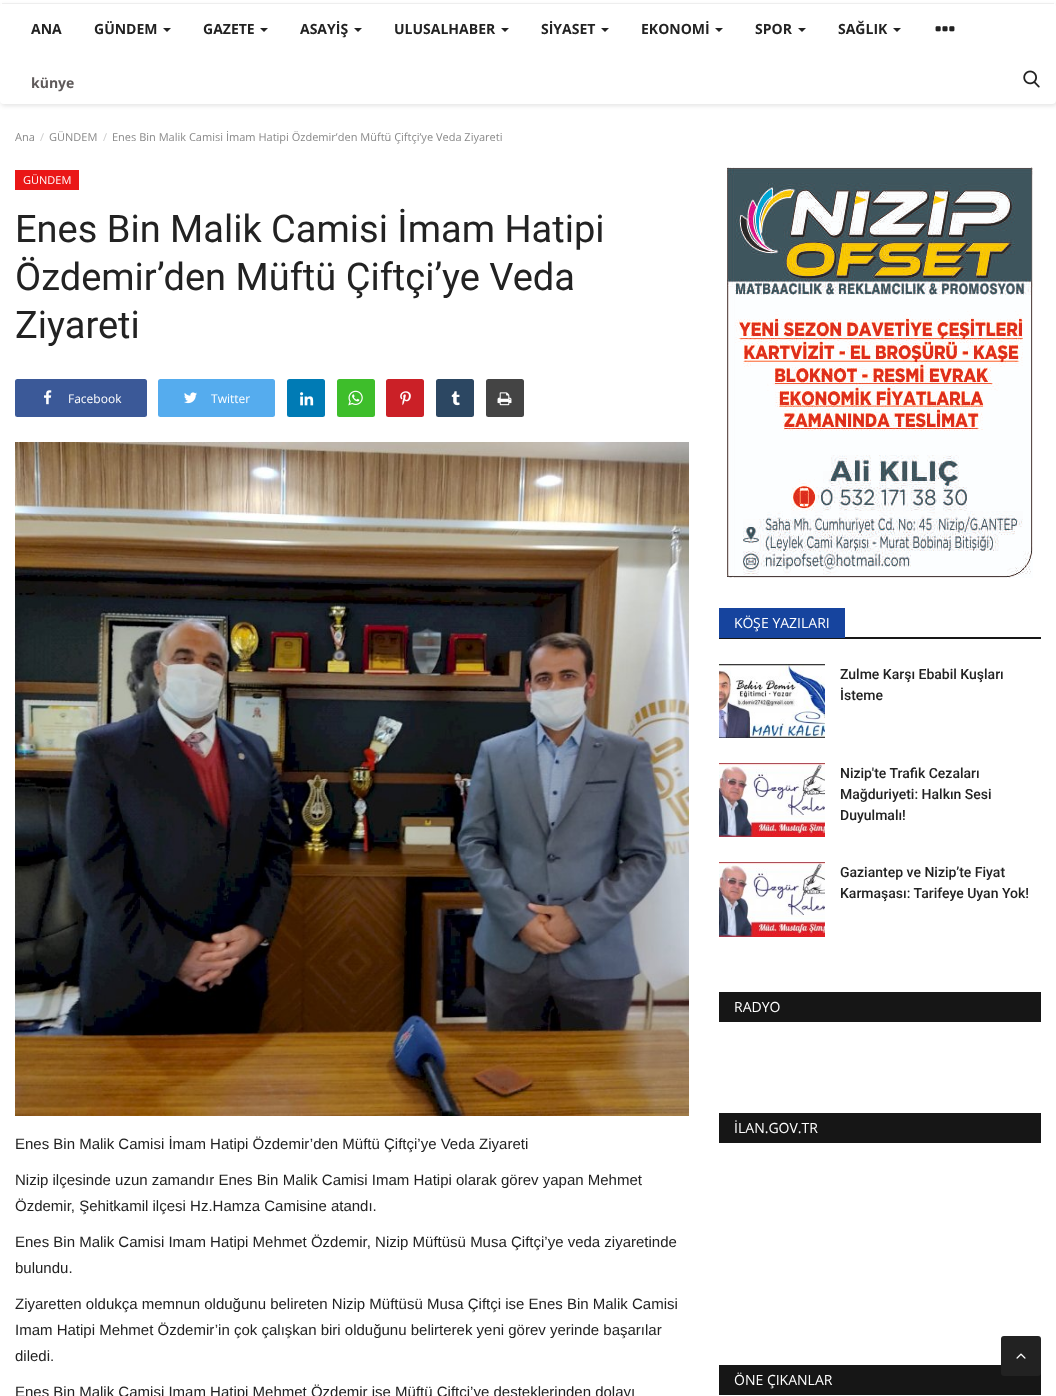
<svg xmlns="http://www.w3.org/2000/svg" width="1056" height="1396">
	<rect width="100%" height="100%" fill="#FFFFFF" />
	<rect x="1" y="5" width="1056" height="101" rx="4" fill="#000000" fill-opacity="0.1" filter="blur(2px)" />
	<rect x="0" y="3" width="1056" height="101" rx="4" fill="#FFFFFF" />
	<rect x="2" y="3" width="1052" height="1" fill="#EEEEEE" />
	<g font-family="Open Sans" font-size="14" font-weight="700" fill="#222222">
		<text x="31" y="34">ANA</text>
		<text x="94" y="34">GÜNDEM</text>
	</g>
	<path d="M163 28H171L167 32Z" fill="#222222" />
	<text x="203" y="34" font-family="Open Sans" font-size="14" font-weight="700" fill="#222222">GAZETE</text>
	<path d="M260 28H268L264 32Z" fill="#222222" />
	<text x="300" y="34" font-family="Open Sans" font-size="14" font-weight="700" fill="#222222">ASAYİŞ</text>
	<path d="M354 28H362L358 32Z" fill="#222222" />
	<text x="394" y="34" font-family="Open Sans" font-size="14" font-weight="700" fill="#222222">ULUSALHABER</text>
	<path d="M501 28H509L505 32Z" fill="#222222" />
	<text x="541" y="34" font-family="Open Sans" font-size="14" font-weight="700" fill="#222222">SİYASET</text>
	<path d="M601 28H609L605 32Z" fill="#222222" />
	<text x="641" y="34" font-family="Open Sans" font-size="14" font-weight="700" fill="#222222">EKONOMİ</text>
	<path d="M715 28H723L719 32Z" fill="#222222" />
	<text x="755" y="34" font-family="Open Sans" font-size="14" font-weight="700" fill="#222222">SPOR</text>
	<path d="M798 28H806L802 32Z" fill="#222222" />
	<text x="838" y="34" font-family="Open Sans" font-size="14" font-weight="700" fill="#222222">SAĞLIK</text>
	<path d="M893 28H901L897 32Z" fill="#222222" />
	<image x="935" y="26" width="20" height="6" href="assets/img1.png" />
	<text x="31" y="88" font-family="Open Sans" font-size="14" font-weight="700" fill="#5F5A5A">künye</text>
	<image x="1023" y="70" width="17" height="18" href="assets/img2.png" />
	<text x="15" y="141" font-family="Open Sans" font-size="11" fill="#888888">Ana</text>
	<text x="40" y="141" font-family="Open Sans" font-size="11" fill="#CCCCCC">/</text>
	<text x="49" y="141" font-family="Open Sans" font-size="11" fill="#888888">GÜNDEM</text>
	<text x="103" y="141" font-family="Open Sans" font-size="11" fill="#CCCCCC">/</text>
	<text x="112" y="141" font-family="Open Sans" font-size="11" fill="#888888">Enes Bin Malik Camisi</text>
	<text x="226" y="141" font-family="'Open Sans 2'" font-size="11" fill="#888888">İ</text>
	<text x="229" y="141" font-family="Open Sans" font-size="11" fill="#888888">mam Hatipi Özdemir’den Müftü Çiftçi’ye Veda Ziyareti</text>
	<rect x="15" y="170" width="64" height="20" fill="#EA1717" />
	<text x="23" y="184" font-family="Open Sans" font-size="11" fill="#FFFFFF">GÜNDEM</text>
	<g font-family="Roboto" font-size="38" fill="#222222">
		<text x="15" y="242">Enes Bin Malik Camisi İmam Hatipi</text>
		<text x="15" y="290">Özdemir’den Müftü Çiftçi’ye Veda</text>
		<text x="15" y="338">Ziyareti</text>
	</g>
	<rect x="15" y="379" width="132" height="38" rx="2.5" fill="#3B5998" />
	<image x="44" y="390" width="8" height="15" href="assets/img3.png" />
	<text x="68" y="403" font-family="Open Sans" font-size="12" fill="#FFFFFF">Facebook</text>
	<rect x="158" y="379" width="117" height="38" rx="2.5" fill="#55ACEE" />
	<image x="184" y="392" width="13" height="12" href="assets/img4.png" />
	<text x="211" y="403" font-family="Open Sans" font-size="12" fill="#FFFFFF">Twitter</text>
	<rect x="287" y="379" width="38" height="38" rx="2.5" fill="#007BB5" />
	<image x="300" y="392" width="14" height="14" href="assets/img5.png" />
	<rect x="337" y="379" width="38" height="38" rx="2.5" fill="#3EBE2B" />
	<image x="348" y="390" width="15" height="16" href="assets/img6.png" />
	<rect x="386" y="379" width="38" height="38" rx="2.5" fill="#CB2027" />
	<image x="400" y="391" width="11" height="15" href="assets/img7.png" />
	<rect x="436" y="379" width="38" height="38" rx="2.5" fill="#2C4762" />
	<image x="451" y="391" width="9" height="15" href="assets/img8.png" />
	<rect x="486" y="379" width="38" height="38" rx="2.5" fill="#444444" />
	<image x="497" y="392" width="15" height="14" href="assets/img9.png" />
	<image x="15" y="442" width="674" height="674" href="assets/img10.png" />
	<g font-family="Liberation Sans" font-size="15" fill="#222222">
		<text x="15" y="1149">Enes Bin Malik Camisi İmam Hatipi Özdemir’den Müftü Çiftçi’ye Veda Ziyareti</text>
		<text x="15" y="1185">Nizip ilçesinde uzun zamandır Enes Bin Malik Camisi Imam Hatipi olarak görev yapan Mehmet</text>
		<text x="15" y="1211">Özdemir, Şehitkamil ilçesi Hz.Hamza Camisine atandı.</text>
		<text x="15" y="1247">Enes Bin Malik Camisi Imam Hatipi Mehmet Özdemir, Nizip Müftüsü Musa Çiftçi’ye veda ziyaretinde</text>
		<text x="15" y="1273">bulundu.</text>
		<text x="15" y="1309">Ziyaretten oldukça memnun olduğunu belireten Nizip Müftüsü Musa Çiftçi ise Enes Bin Malik Camisi</text>
		<text x="15" y="1335">Imam Hatipi Mehmet Özdemir’in çok çalışkan biri olduğunu belirterek yeni görev yerinde başarılar</text>
		<text x="15" y="1361">diledi.</text>
		<text x="15" y="1397">Enes Bin Malik Camisi Imam Hatipi Mehmet Özdemir ise Müftü Çiftçi’ye desteklerinden dolayı</text>
	</g>
	<image x="727" y="167" width="306" height="411" href="assets/img11.png" />
	<rect x="719" y="637" width="322" height="2" fill="#161616" />
	<rect x="719" y="608" width="126" height="30" fill="#16449E" />
	<text x="734" y="628" font-family="Open Sans" font-size="14" fill="#FFFFFF">KÖ</text>
	<text x="753" y="628" font-family="'Open Sans 2'" font-size="14" fill="#FFFFFF">Ş</text>
	<text x="761" y="628" font-family="Open Sans" font-size="14" fill="#FFFFFF">E YAZILARI</text>
	<image x="719" y="664" width="106" height="74" href="assets/img12.png" />
	<g font-family="Roboto" font-size="14" font-weight="500" fill="#222222">
		<text x="840" y="679">Zulme Karşı Ebabil Kuşları</text>
		<text x="840" y="700">İsteme</text>
	</g>
	<image x="719" y="763" width="106" height="74" href="assets/img13.png" />
	<g font-family="Roboto" font-size="14" font-weight="500" fill="#222222">
		<text x="840" y="778">Nizip'te Trafik Cezaları</text>
		<text x="840" y="799">Mağduriyeti: Halkın Sesi</text>
		<text x="840" y="820">Duyulmalı!</text>
	</g>
	<image x="719" y="862" width="106" height="75" href="assets/img14.png" />
	<g font-family="Roboto" font-size="14" font-weight="500" fill="#222222">
		<text x="840" y="877">Gaziantep ve Nizip’te Fiyat</text>
		<text x="840" y="898">Karmaşası: Tarifeye Uyan Yok!</text>
	</g>
	<rect x="719" y="992" width="322" height="30" fill="#161616" />
	<text x="734" y="1012" font-family="Open Sans" font-size="14" fill="#FFFFFF">RADYO</text>
	<rect x="719" y="1113" width="322" height="30" fill="#161616" />
	<text x="734" y="1133" font-family="'Open Sans 2'" font-size="14" fill="#FFFFFF">İ</text>
	<text x="738" y="1133" font-family="Open Sans" font-size="14" fill="#FFFFFF">LAN.GOV.TR</text>
	<rect x="719" y="1365" width="322" height="30" fill="#161616" />
	<text x="734" y="1385" font-family="Open Sans" font-size="14" fill="#FFFFFF">ÖNE ÇIKANLAR</text>
	<rect x="1001" y="1336" width="40" height="40" rx="3" fill="#222222" />
	<image x="1016" y="1353" width="10" height="6" href="assets/img15.png" />
</svg>
